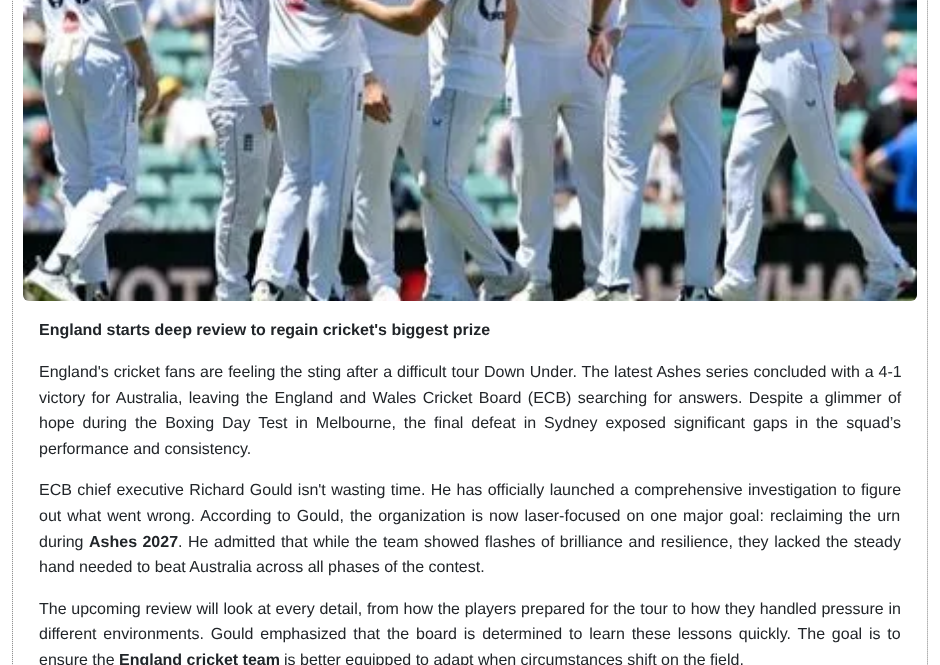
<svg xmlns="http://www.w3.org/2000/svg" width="940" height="665">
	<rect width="100%" height="100%" fill="#FFFFFF" />
	<path d="M16-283.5H924C926-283.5 927.5-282 927.5-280V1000C927.5 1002 926 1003.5 924 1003.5H16C14 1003.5 12.5 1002 12.5 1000V-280C12.5-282 14-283.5 16-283.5Z" fill="none" stroke="#808080" stroke-dasharray="1 1" />
	<image x="23" y="0" width="894" height="301" href="assets/img1.png" />
	<text x="39" y="335" font-family="Liberation Sans" font-size="16" font-weight="700" fill="#212529">England starts deep review to regain cricket's biggest prize</text>
	<g font-family="Liberation Sans" font-size="16" fill="#212529">
		<text x="39" y="377" word-spacing="0.5">England's cricket fans are feeling the sting after a difficult tour Down Under. The latest Ashes series concluded with a 4-1</text>
		<text x="39" y="403" word-spacing="1.9">victory for Australia, leaving the England and Wales Cricket Board (ECB) searching for answers. Despite a glimmer of</text>
		<text x="39" y="428" word-spacing="3.5">hope during the Boxing Day Test in Melbourne, the final defeat in Sydney exposed significant gaps in the squad’s</text>
		<text x="39" y="454">performance and consistency.</text>
		<text x="39" y="495" word-spacing="0.9">ECB chief executive Richard Gould isn't wasting time. He has officially launched a comprehensive investigation to figure</text>
		<text x="39" y="521" word-spacing="1.6">out what went wrong. According to Gould, the organization is now laser-focused on one major goal: reclaiming the urn</text>
		<text x="39" y="547">during</text>
	</g>
	<text x="89" y="547" word-spacing="1" font-family="Liberation Sans" font-size="16" font-weight="700" fill="#212529">Ashes 2027</text>
	<g font-family="Liberation Sans" font-size="16" fill="#212529">
		<text x="178" y="547" word-spacing="1.1">. He admitted that while the team showed flashes of brilliance and resilience, they lacked the steady</text>
		<text x="39" y="572">hand needed to beat Australia across all phases of the contest.</text>
		<text x="39" y="614" word-spacing="0.3">The upcoming review will look at every detail, from how the players prepared for the tour to how they handled pressure in</text>
		<text x="39" y="639" word-spacing="2.4">different environments. Gould emphasized that the board is determined to learn these lessons quickly. The goal is to</text>
		<text x="39" y="665">ensure the</text>
	</g>
	<text x="119" y="665" font-family="Liberation Sans" font-size="16" font-weight="700" fill="#212529">England cricket team</text>
	<text x="284" y="665" font-family="Liberation Sans" font-size="16" fill="#212529">is better equipped to adapt when circumstances shift on the field.</text>
</svg>
